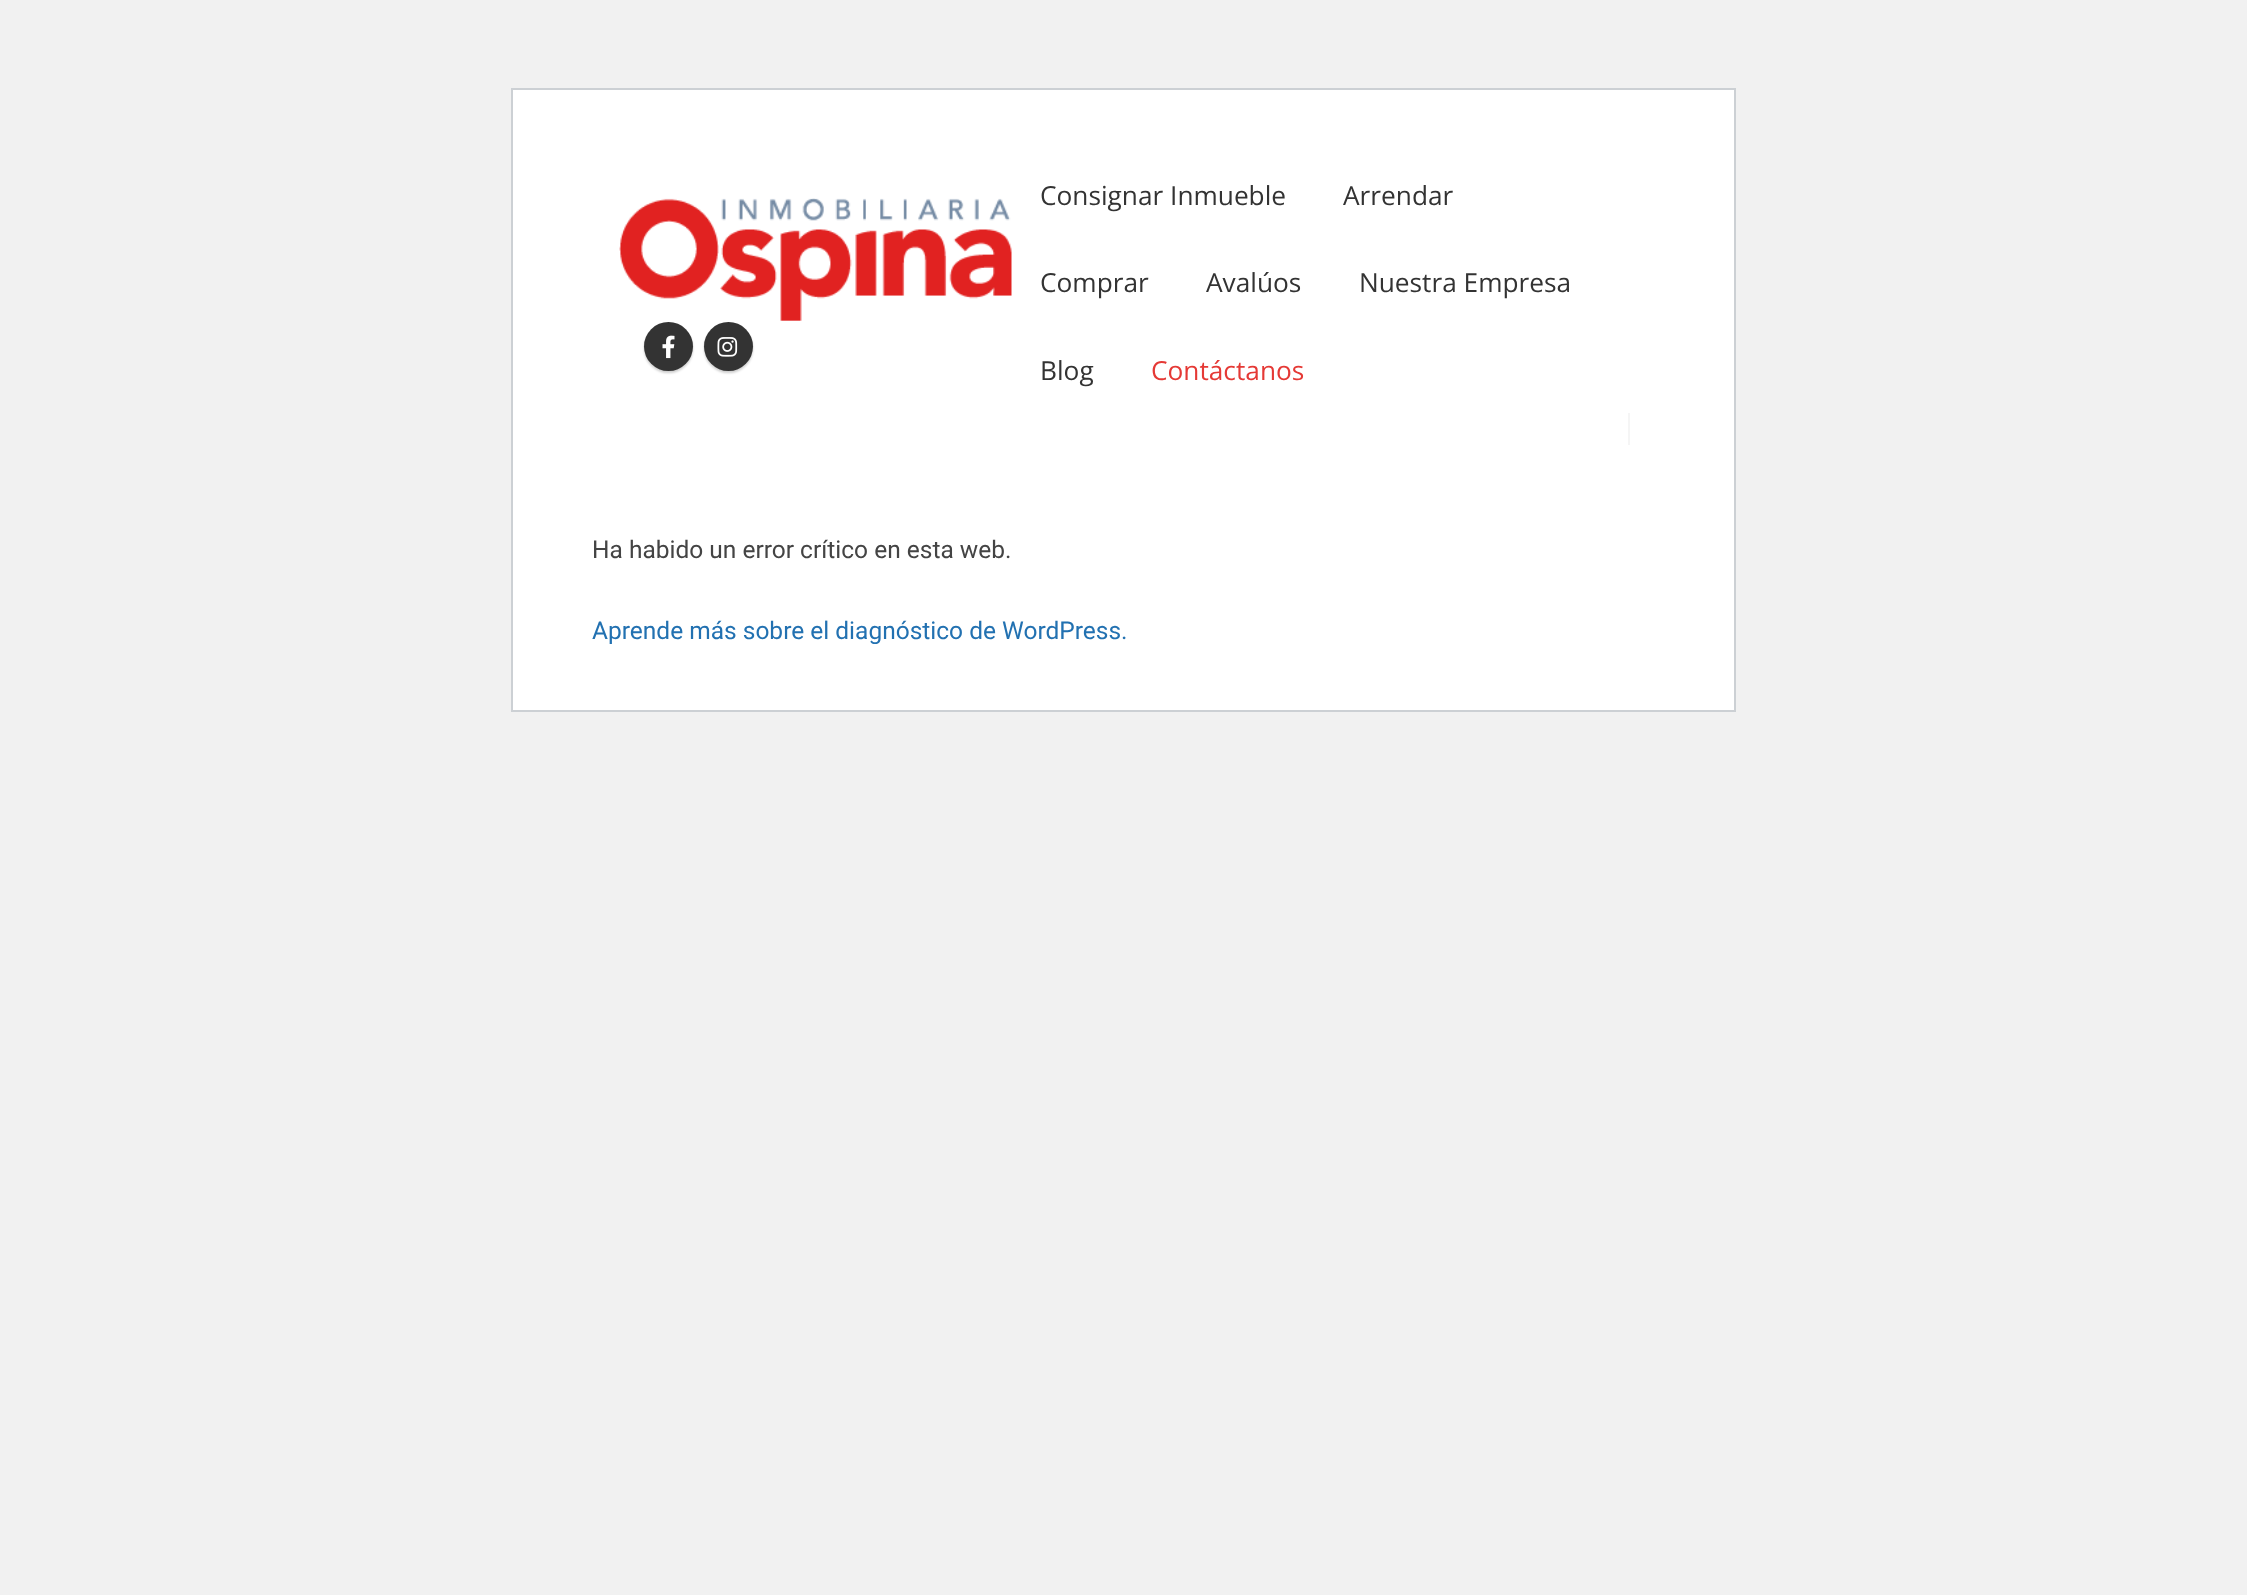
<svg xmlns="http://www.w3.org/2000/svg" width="2247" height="1595">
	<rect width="100%" height="100%" fill="#F1F1F1" />
	<rect x="512" y="89" width="1223" height="622" fill="#FFFFFF" stroke="#CCD0D4" stroke-width="2" />
	<image x="619" y="198" width="393" height="123" href="assets/img1.png" />
	<rect x="644" y="324" width="49" height="49" rx="24.5" fill="#000000" fill-opacity="0.2" filter="blur(1px)" />
	<circle cx="668.5" cy="346.5" r="24.5" fill="#333333" />
	<image x="662" y="335" width="13" height="24" href="assets/img2.png" />
	<rect x="704" y="324" width="49" height="49" rx="24.5" fill="#000000" fill-opacity="0.2" filter="blur(1px)" />
	<circle cx="728.5" cy="346.5" r="24.5" fill="#333333" />
	<image x="717" y="337" width="21" height="20" href="assets/img3.png" />
	<g font-family="Open Sans" font-size="26.25" fill="#333333">
		<text x="1040" y="205">Consignar Inmueble</text>
		<text x="1343" y="205">Arrendar</text>
		<text x="1040" y="292">Comprar</text>
		<text x="1206" y="292">Avalúos</text>
		<text x="1359" y="292">Nuestra Empresa</text>
		<text x="1040" y="380">Blog</text>
	</g>
	<text x="1151" y="380" font-family="Open Sans" font-size="26.25" fill="#E53935">Contáctanos</text>
	<rect x="1628" y="413" width="2" height="32" fill="#F5F5F5" />
	<text x="592" y="558" font-family="Roboto" font-size="24.5" fill="#444444">Ha habido un error crítico en esta web.</text>
	<text x="592" y="639" font-family="Roboto" font-size="24.5" fill="#2271B1">Aprende más sobre el diagnóstico de WordPress.</text>
</svg>
